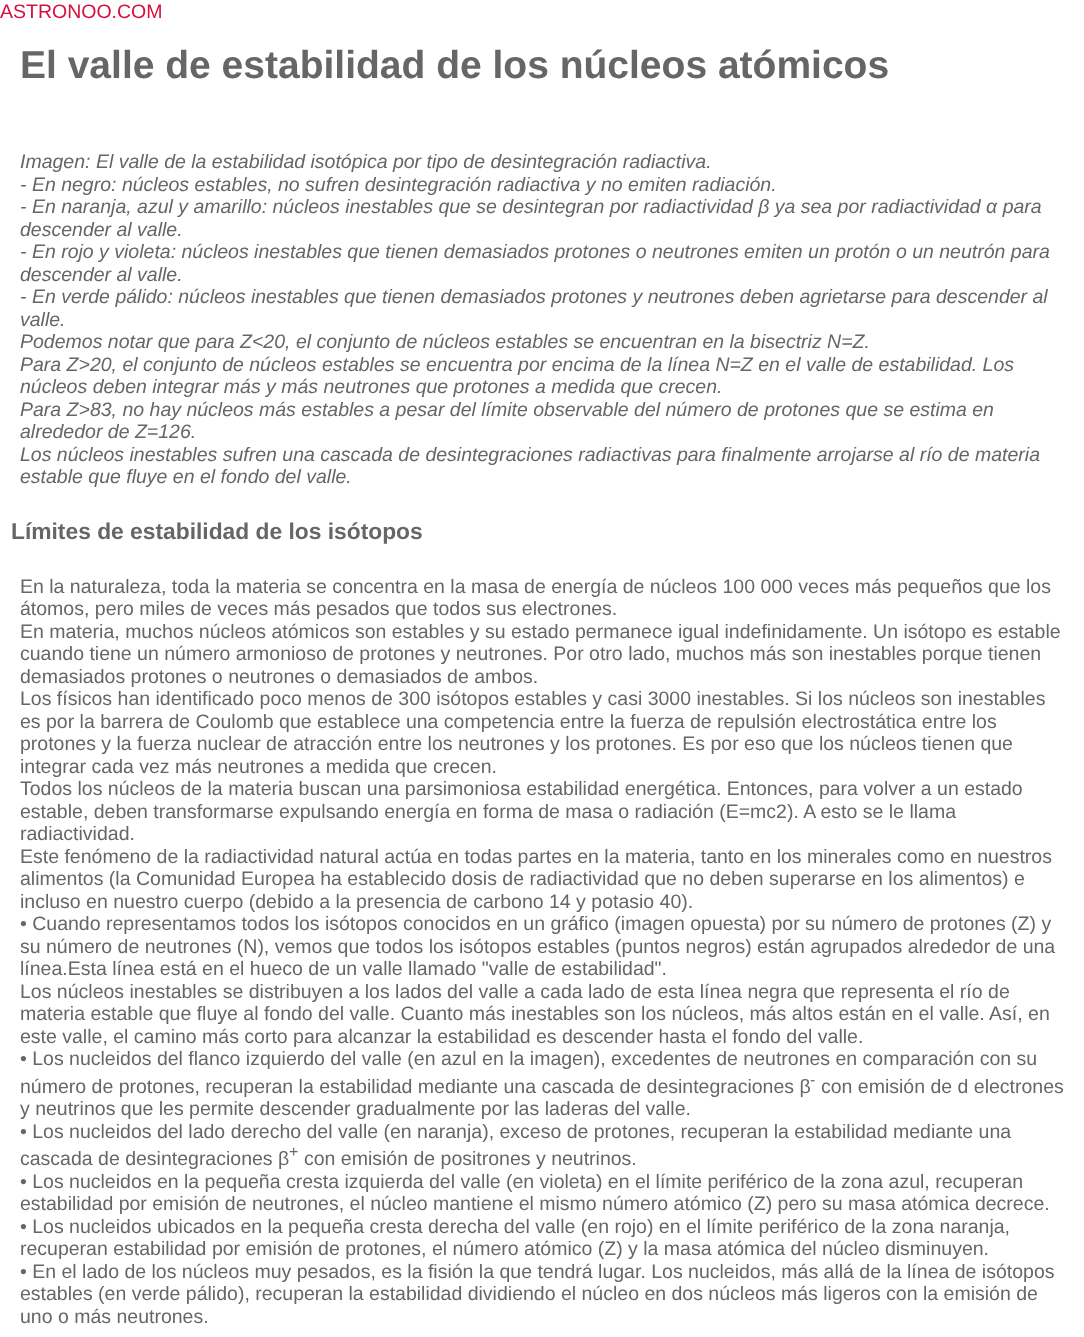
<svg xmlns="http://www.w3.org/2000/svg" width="1084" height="1337">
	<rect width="100%" height="100%" fill="#FFFFFF" />
	<text x="0" y="18" font-family="Liberation Sans" font-size="19.5" fill="#D6103C">ASTRONOO.COM</text>
	<text x="20" y="78" font-family="Liberation Sans" font-size="39" font-weight="700" fill="#666666">El valle de estabilidad de los núcleos atómicos</text>
	<g font-family="Liberation Sans" font-size="19.5" font-style="italic" fill="#666666">
		<text x="20" y="168">Imagen: El valle de la estabilidad isotópica por tipo de desintegración radiactiva.</text>
		<text x="20" y="191">- En negro: núcleos estables, no sufren desintegración radiactiva y no emiten radiación.</text>
		<text x="20" y="213">- En naranja, azul y amarillo: núcleos inestables que se desintegran por radiactividad β ya sea por radiactividad α para</text>
		<text x="20" y="236">descender al valle.</text>
		<text x="20" y="258">- En rojo y violeta: núcleos inestables que tienen demasiados protones o neutrones emiten un protón o un neutrón para</text>
		<text x="20" y="281">descender al valle.</text>
		<text x="20" y="303">- En verde pálido: núcleos inestables que tienen demasiados protones y neutrones deben agrietarse para descender al</text>
		<text x="20" y="326">valle.</text>
		<text x="20" y="348">Podemos notar que para Z&lt;20, el conjunto de núcleos estables se encuentran en la bisectriz N=Z.</text>
		<text x="20" y="371">Para Z&gt;20, el conjunto de núcleos estables se encuentra por encima de la línea N=Z en el valle de estabilidad. Los</text>
		<text x="20" y="393">núcleos deben integrar más y más neutrones que protones a medida que crecen.</text>
		<text x="20" y="416">Para Z&gt;83, no hay núcleos más estables a pesar del límite observable del número de protones que se estima en</text>
		<text x="20" y="438">alrededor de Z=126.</text>
		<text x="20" y="461">Los núcleos inestables sufren una cascada de desintegraciones radiactivas para finalmente arrojarse al río de materia</text>
		<text x="20" y="483">estable que fluye en el fondo del valle.</text>
	</g>
	<text x="11" y="539" font-family="Liberation Sans" font-size="22.8" font-weight="700" fill="#666666">Límites de estabilidad de los isótopos</text>
	<g font-family="Liberation Sans" font-size="19.5" fill="#666666">
		<text x="20" y="593">En la naturaleza, toda la materia se concentra en la masa de energía de núcleos 100 000 veces más pequeños que los</text>
		<text x="20" y="615">átomos, pero miles de veces más pesados que todos sus electrones.</text>
		<text x="20" y="638">En materia, muchos núcleos atómicos son estables y su estado permanece igual indefinidamente. Un isótopo es estable</text>
		<text x="20" y="660">cuando tiene un número armonioso de protones y neutrones. Por otro lado, muchos más son inestables porque tienen</text>
		<text x="20" y="683">demasiados protones o neutrones o demasiados de ambos.</text>
		<text x="20" y="705">Los físicos han identificado poco menos de 300 isótopos estables y casi 3000 inestables. Si los núcleos son inestables</text>
		<text x="20" y="728">es por la barrera de Coulomb que establece una competencia entre la fuerza de repulsión electrostática entre los</text>
		<text x="20" y="750">protones y la fuerza nuclear de atracción entre los neutrones y los protones. Es por eso que los núcleos tienen que</text>
		<text x="20" y="773">integrar cada vez más neutrones a medida que crecen.</text>
		<text x="20" y="795">Todos los núcleos de la materia buscan una parsimoniosa estabilidad energética. Entonces, para volver a un estado</text>
		<text x="20" y="818">estable, deben transformarse expulsando energía en forma de masa o radiación (E=mc2). A esto se le llama</text>
		<text x="20" y="840">radiactividad.</text>
		<text x="20" y="863">Este fenómeno de la radiactividad natural actúa en todas partes en la materia, tanto en los minerales como en nuestros</text>
		<text x="20" y="885">alimentos (la Comunidad Europea ha establecido dosis de radiactividad que no deben superarse en los alimentos) e</text>
		<text x="20" y="908">incluso en nuestro cuerpo (debido a la presencia de carbono 14 y potasio 40).</text>
		<text x="20" y="930">• Cuando representamos todos los isótopos conocidos en un gráfico (imagen opuesta) por su número de protones (Z) y</text>
		<text x="20" y="953">su número de neutrones (N), vemos que todos los isótopos estables (puntos negros) están agrupados alrededor de una</text>
		<text x="20" y="975">línea.Esta línea está en el hueco de un valle llamado "valle de estabilidad".</text>
		<text x="20" y="998">Los núcleos inestables se distribuyen a los lados del valle a cada lado de esta línea negra que representa el río de</text>
		<text x="20" y="1020">materia estable que fluye al fondo del valle. Cuanto más inestables son los núcleos, más altos están en el valle. Así, en</text>
		<text x="20" y="1043">este valle, el camino más corto para alcanzar la estabilidad es descender hasta el fondo del valle.</text>
		<text x="20" y="1065">• Los nucleidos del flanco izquierdo del valle (en azul en la imagen), excedentes de neutrones en comparación con su</text>
		<text x="20" y="1093">número de protones, recuperan la estabilidad mediante una cascada de desintegraciones β</text>
	</g>
	<text x="810" y="1085" font-family="Liberation Sans" font-size="16" fill="#666666">-</text>
	<g font-family="Liberation Sans" font-size="19.5" fill="#666666">
		<text x="821" y="1093">con emisión de d electrones</text>
		<text x="20" y="1115">y neutrinos que les permite descender gradualmente por las laderas del valle.</text>
		<text x="20" y="1138">• Los nucleidos del lado derecho del valle (en naranja), exceso de protones, recuperan la estabilidad mediante una</text>
		<text x="20" y="1165">cascada de desintegraciones β</text>
	</g>
	<text x="289" y="1157" font-family="Liberation Sans" font-size="16" fill="#666666">+</text>
	<g font-family="Liberation Sans" font-size="19.5" fill="#666666">
		<text x="304" y="1165">con emisión de positrones y neutrinos.</text>
		<text x="20" y="1188">• Los nucleidos en la pequeña cresta izquierda del valle (en violeta) en el límite periférico de la zona azul, recuperan</text>
		<text x="20" y="1210">estabilidad por emisión de neutrones, el núcleo mantiene el mismo número atómico (Z) pero su masa atómica decrece.</text>
		<text x="20" y="1233">• Los nucleidos ubicados en la pequeña cresta derecha del valle (en rojo) en el límite periférico de la zona naranja,</text>
		<text x="20" y="1255">recuperan estabilidad por emisión de protones, el número atómico (Z) y la masa atómica del núcleo disminuyen.</text>
		<text x="20" y="1278">• En el lado de los núcleos muy pesados, es la fisión la que tendrá lugar. Los nucleidos, más allá de la línea de isótopos</text>
		<text x="20" y="1300">estables (en verde pálido), recuperan la estabilidad dividiendo el núcleo en dos núcleos más ligeros con la emisión de</text>
		<text x="20" y="1323">uno o más neutrones.</text>
	</g>
</svg>
